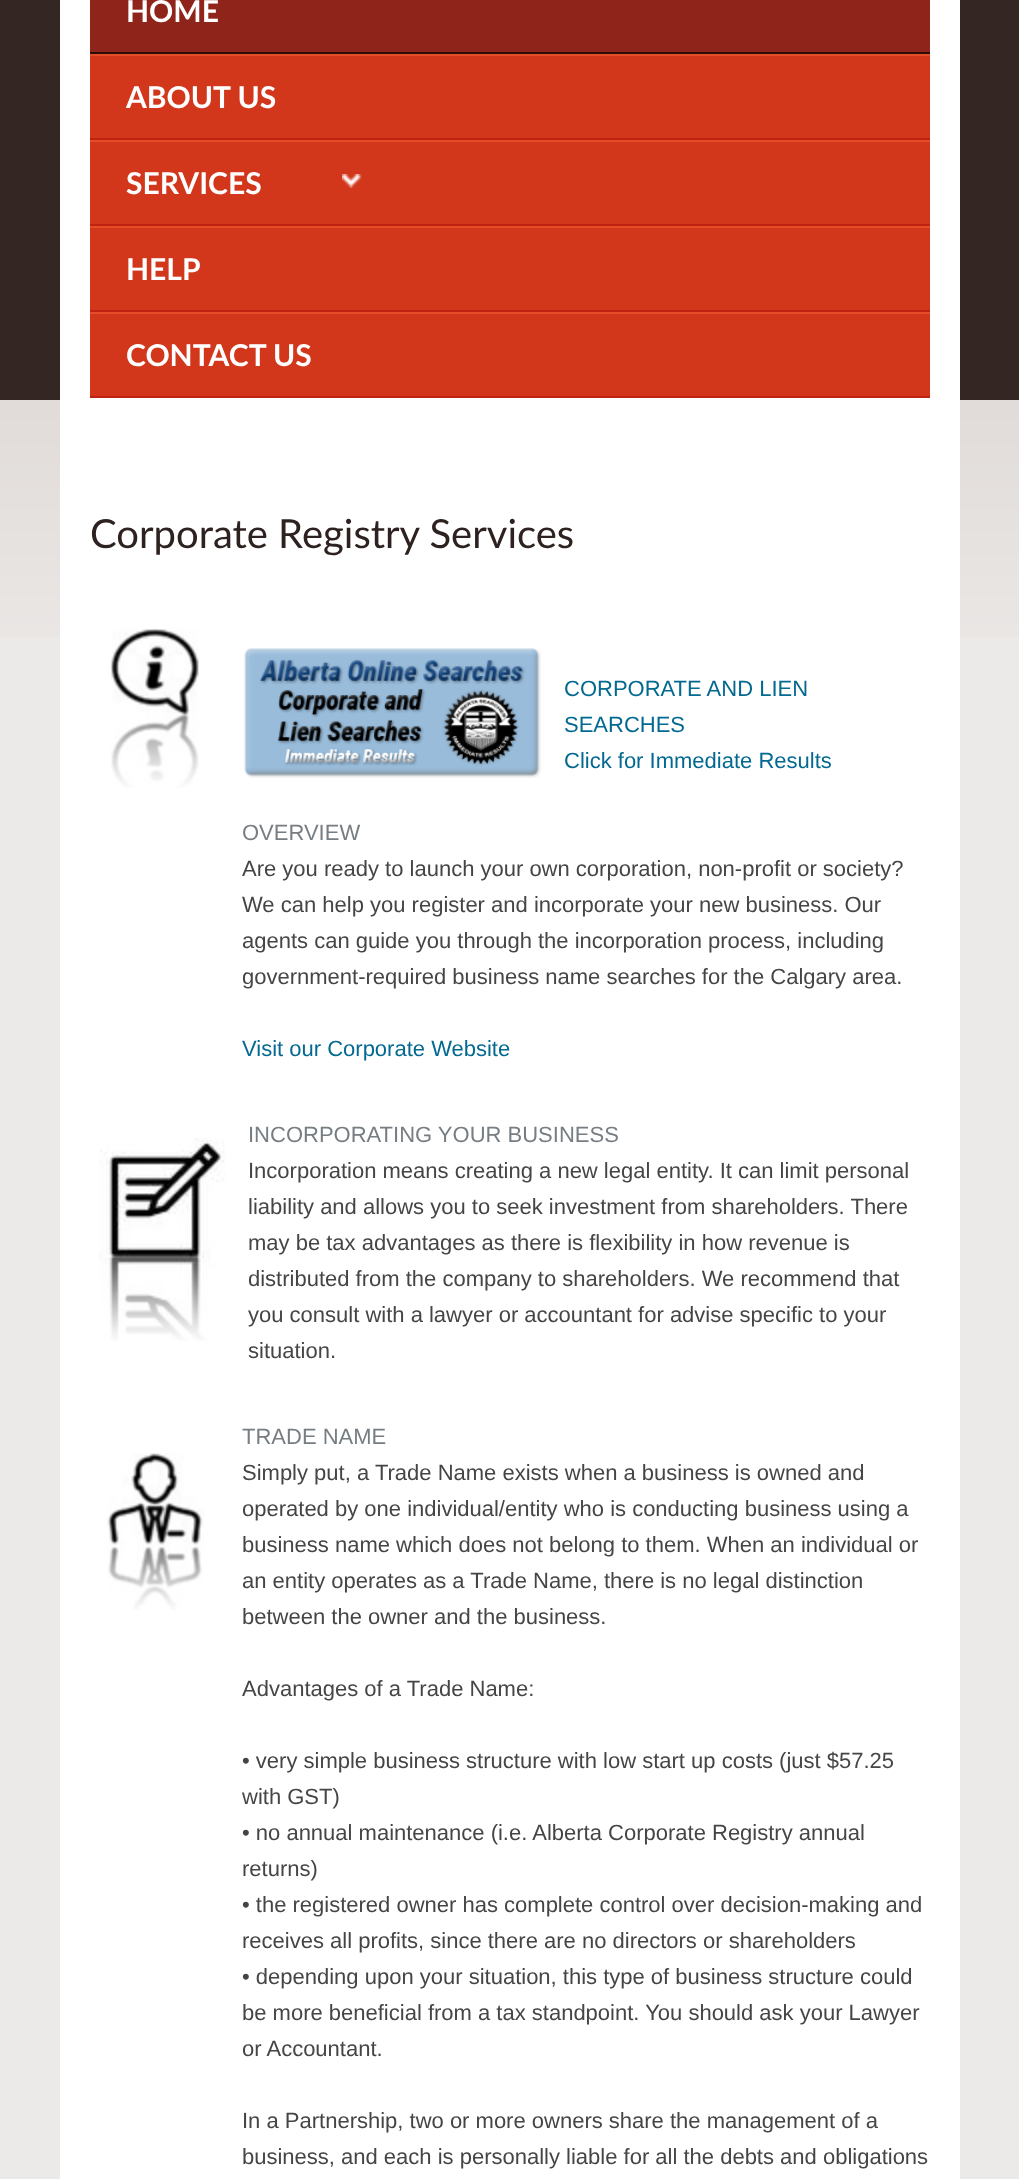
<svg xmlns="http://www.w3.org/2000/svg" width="1019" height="2179">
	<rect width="100%" height="100%" fill="#ECEAE9" />
	<rect x="0" y="0" width="1019" height="400" fill="#332623" />
	<rect x="60" y="0" width="900" height="400" fill="#FFFFFF" />
	<rect x="90" y="0" width="840" height="52" fill="#8E241A" />
	<rect x="90" y="52" width="840" height="2" fill="#2E0B08" />
	<text x="126" y="22" font-family="Lato" font-size="30" font-weight="700" fill="#FFFFFF">HOME</text>
	<rect x="90" y="56" width="840" height="82" fill="#D2371C" />
	<rect x="90" y="54" width="840" height="2" fill="#E44D27" />
	<rect x="90" y="138" width="840" height="2" fill="#C02111" />
	<text x="126" y="108" font-family="Lato" font-size="30" font-weight="700" fill="#FFFFFF">ABOUT US</text>
	<rect x="90" y="142" width="840" height="82" fill="#D2371C" />
	<rect x="90" y="140" width="840" height="2" fill="#E44D27" />
	<rect x="90" y="224" width="840" height="2" fill="#C02111" />
	<text x="126" y="194" font-family="Lato" font-size="30" font-weight="700" fill="#FFFFFF">SERVICES</text>
	<image x="342" y="174" width="20" height="14" href="assets/img1.png" />
	<rect x="90" y="228" width="840" height="82" fill="#D2371C" />
	<rect x="90" y="226" width="840" height="2" fill="#E44D27" />
	<rect x="90" y="310" width="840" height="2" fill="#C02111" />
	<text x="126" y="280" font-family="Lato" font-size="30" font-weight="700" fill="#FFFFFF">HELP</text>
	<rect x="90" y="314" width="840" height="82" fill="#D2371C" />
	<rect x="90" y="312" width="840" height="2" fill="#E44D27" />
	<rect x="90" y="396" width="840" height="2" fill="#C02111" />
	<text x="126" y="366" font-family="Lato" font-size="30" font-weight="700" fill="#FFFFFF">CONTACT US</text>
	<image x="0" y="400" width="1019" height="237" href="assets/img2.png" />
	<rect x="60" y="400" width="900" height="1779" fill="#FFFFFF" />
	<text x="90" y="548" font-family="Lato" font-size="40" fill="#2E2220">Corporate Registry Services</text>
	<image x="110" y="628" width="89" height="160" href="assets/img3.png" />
	<image x="244" y="648" width="297" height="130" href="assets/img4.png" />
	<g font-family="Liberation Sans" font-size="22" fill="#036991">
		<text x="564" y="696">CORPORATE AND LIEN</text>
		<text x="564" y="732">SEARCHES</text>
		<text x="564" y="768">Click for Immediate Results</text>
	</g>
	<text x="242" y="840" font-family="Liberation Sans" font-size="22" fill="#777E83">OVERVIEW</text>
	<g font-family="Liberation Sans" font-size="22" fill="#454545">
		<text x="242" y="876">Are you ready to launch your own corporation, non-profit or society?</text>
		<text x="242" y="912">We can help you register and incorporate your new business. Our</text>
		<text x="242" y="948">agents can guide you through the incorporation process, including</text>
		<text x="242" y="984">government-required business name searches for the Calgary area.</text>
	</g>
	<text x="242" y="1056" font-family="Liberation Sans" font-size="22" fill="#036991">Visit our Corporate Website</text>
	<image x="99" y="1138" width="127" height="203" href="assets/img5.png" />
	<text x="248" y="1142" font-family="Liberation Sans" font-size="22" fill="#777E83">INCORPORATING YOUR BUSINESS</text>
	<g font-family="Liberation Sans" font-size="22" fill="#454545">
		<text x="248" y="1178">Incorporation means creating a new legal entity. It can limit personal</text>
		<text x="248" y="1214">liability and allows you to seek investment from shareholders. There</text>
		<text x="248" y="1250">may be tax advantages as there is flexibility in how revenue is</text>
		<text x="248" y="1286">distributed from the company to shareholders. We recommend that</text>
		<text x="248" y="1322">you consult with a lawyer or accountant for advise specific to your</text>
		<text x="248" y="1358">situation.</text>
	</g>
	<image x="107" y="1453" width="97" height="157" href="assets/img6.png" />
	<text x="242" y="1444" font-family="Liberation Sans" font-size="22" fill="#777E83">TRADE NAME</text>
	<g font-family="Liberation Sans" font-size="22" fill="#454545">
		<text x="242" y="1480">Simply put, a Trade Name exists when a business is owned and</text>
		<text x="242" y="1516">operated by one individual/entity who is conducting business using a</text>
		<text x="242" y="1552">business name which does not belong to them. When an individual or</text>
		<text x="242" y="1588">an entity operates as a Trade Name, there is no legal distinction</text>
		<text x="242" y="1624">between the owner and the business.</text>
		<text x="242" y="1696">Advantages of a Trade Name:</text>
		<text x="242" y="1768">• very simple business structure with low start up costs (just $57.25</text>
		<text x="242" y="1804">with GST)</text>
		<text x="242" y="1840">• no annual maintenance (i.e. Alberta Corporate Registry annual</text>
		<text x="242" y="1876">returns)</text>
		<text x="242" y="1912">• the registered owner has complete control over decision-making and</text>
		<text x="242" y="1948">receives all profits, since there are no directors or shareholders</text>
		<text x="242" y="1984">• depending upon your situation, this type of business structure could</text>
		<text x="242" y="2020">be more beneficial from a tax standpoint. You should ask your Lawyer</text>
		<text x="242" y="2056">or Accountant.</text>
		<text x="242" y="2128">In a Partnership, two or more owners share the management of a</text>
		<text x="242" y="2164">business, and each is personally liable for all the debts and obligations</text>
	</g>
</svg>
